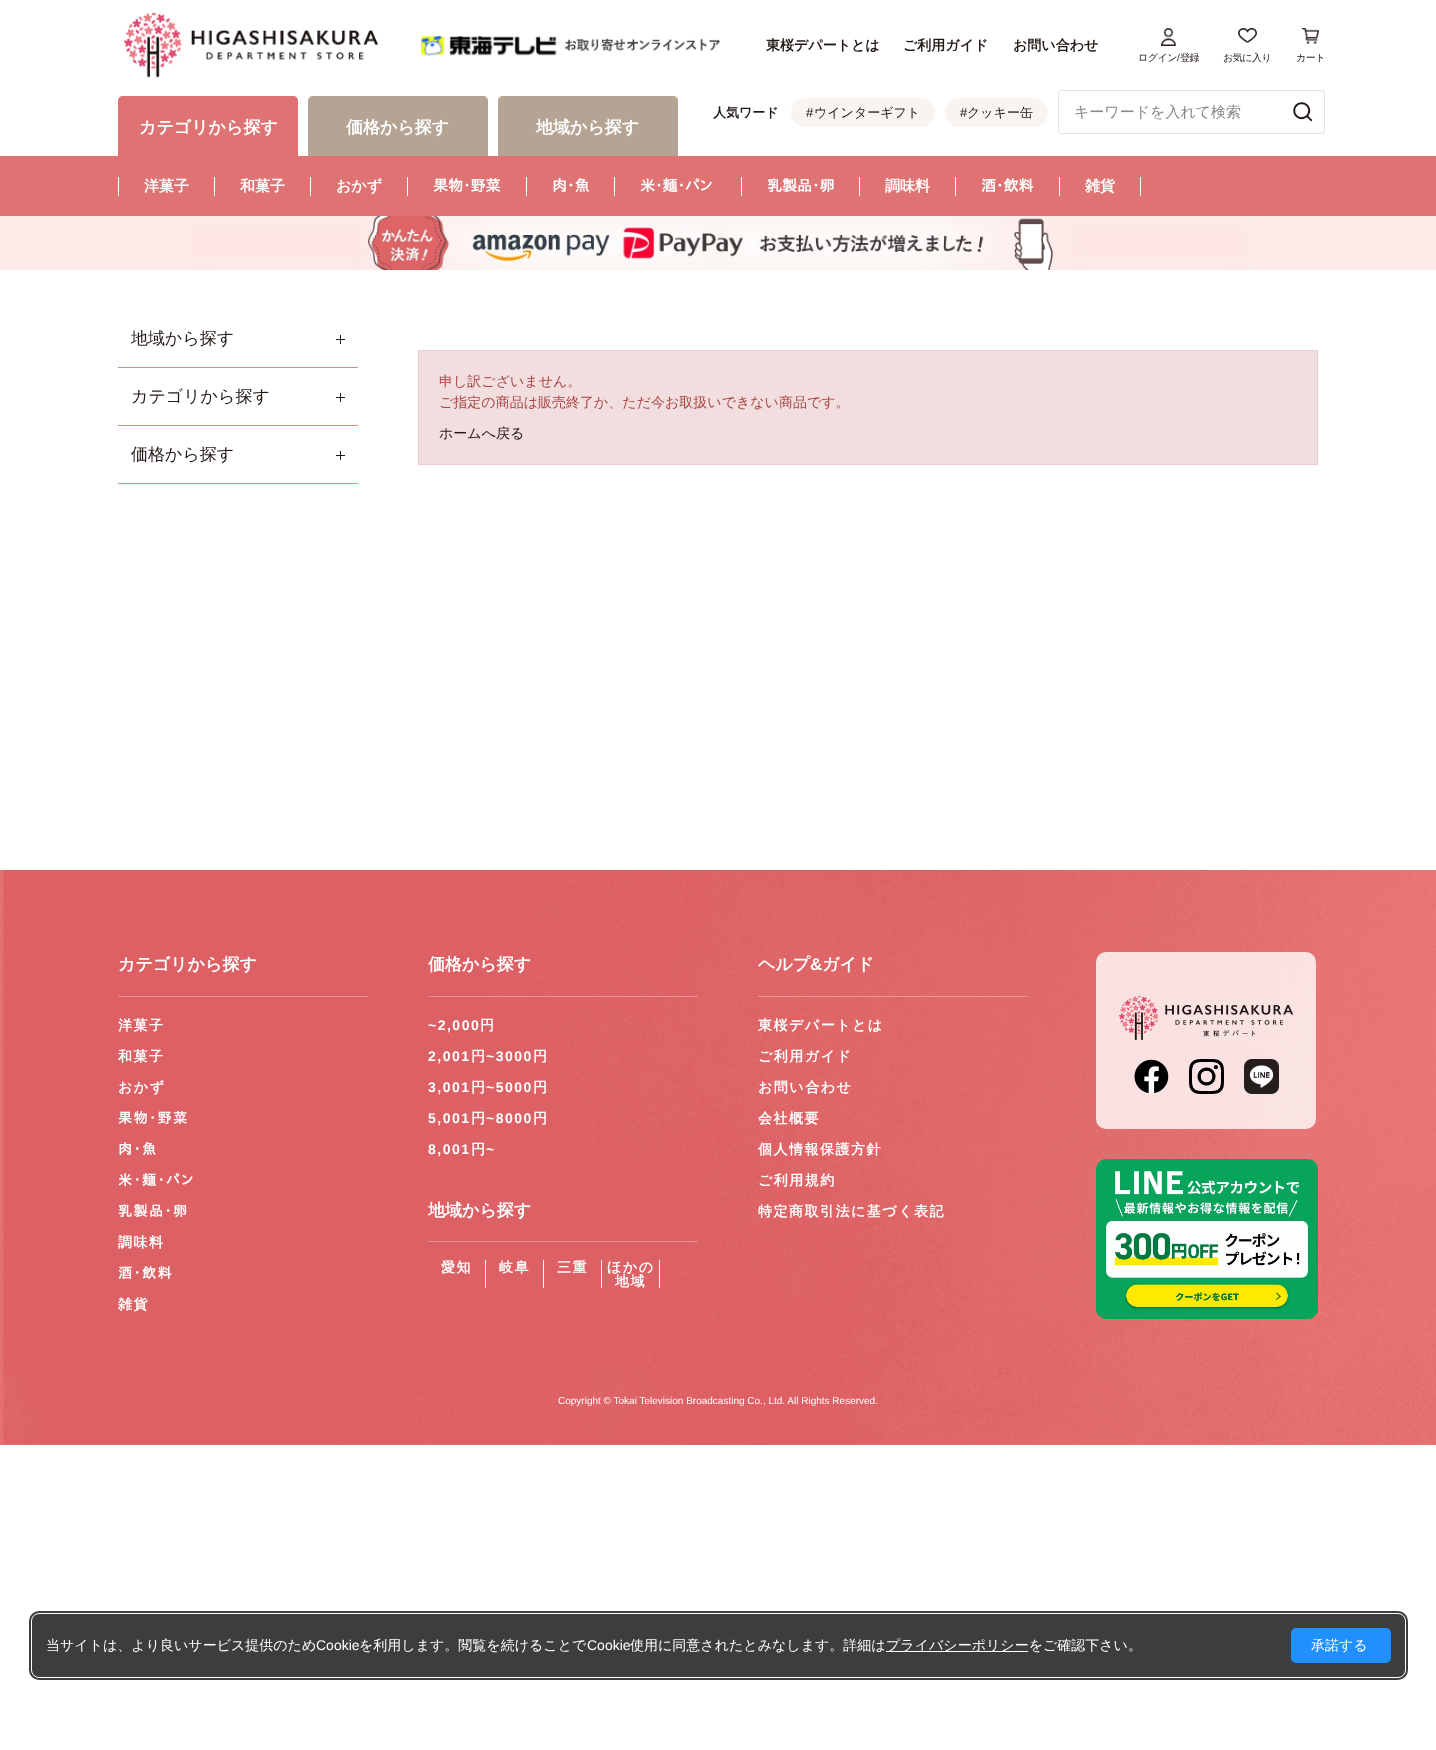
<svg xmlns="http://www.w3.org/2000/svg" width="1436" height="1750">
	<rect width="100%" height="100%" fill="#FFFFFF" />
	<image x="124" y="12" width="255" height="66" href="assets/img1.png" />
	<image x="421" y="36" width="300" height="20" href="assets/img2.png" />
	<g font-family="WenQuanYi Zen Hei" font-size="14" font-weight="700" fill="#221815">
		<text x="766" y="50">東桜デパートとは</text>
		<text x="903" y="50">ご利用ガイド</text>
		<text x="1013" y="50">お問い合わせ</text>
	</g>
	<image x="1161" y="28" width="15" height="18" href="assets/img3.png" />
	<text x="1138" y="61" font-family="WenQuanYi Zen Hei" font-size="10" font-weight="500" letter-spacing="-0.5" fill="#221815">ログイン</text>
	<text x="1177" y="61" font-family="Liberation Sans" font-size="10" letter-spacing="-0.5" fill="#221815">/</text>
	<text x="1180" y="61" font-family="WenQuanYi Zen Hei" font-size="10" font-weight="500" letter-spacing="-0.5" fill="#221815">登録</text>
	<image x="1238" y="28" width="19" height="15" href="assets/img4.png" />
	<text x="1223" y="61" font-family="WenQuanYi Zen Hei" font-size="10" font-weight="500" letter-spacing="-0.5" fill="#221815">お気に入り</text>
	<image x="1302" y="28" width="17" height="16" href="assets/img5.png" />
	<text x="1296" y="61" font-family="WenQuanYi Zen Hei" font-size="10" font-weight="500" letter-spacing="-0.5" fill="#221815">カート</text>
	<text x="713" y="117" font-family="WenQuanYi Zen Hei" font-size="13" font-weight="700" fill="#221815">人気ワード</text>
	<rect x="791" y="98" width="144" height="29" rx="14.5" fill="#F8F4F1" />
	<text x="806" y="117" font-family="Liberation Sans" font-size="13" fill="#221815">#</text>
	<text x="814" y="117" font-family="WenQuanYi Zen Hei" font-size="13" font-weight="500" fill="#221815">ウインターギフト</text>
	<rect x="945" y="98" width="103" height="29" rx="14.5" fill="#F8F4F1" />
	<text x="960" y="117" font-family="Liberation Sans" font-size="13" fill="#221815">#</text>
	<text x="967" y="117" font-family="WenQuanYi Zen Hei" font-size="13" font-weight="500" fill="#221815">クッキー缶</text>
	<rect x="1058.5" y="90.5" width="266" height="43" rx="2.5" fill="none" stroke="#E9E1D9" />
	<text x="1074" y="117" font-family="WenQuanYi Zen Hei" font-size="15" font-weight="500" fill="#888888">キーワードを入れて検索</text>
	<image x="1293" y="102" width="20" height="20" href="assets/img6.png" />
	<path d="M123 96H293C296 96 298 98 298 101V156H118V101C118 98 120 96 123 96Z" fill="#DF7373" />
	<text x="139" y="133" font-family="WenQuanYi Zen Hei" font-size="17" font-weight="700" fill="#FFFFFF">カテゴリから探す</text>
	<path d="M313 96H483C486 96 488 98 488 101V156H308V101C308 98 310 96 313 96Z" fill="#B5A494" />
	<text x="346" y="133" font-family="WenQuanYi Zen Hei" font-size="17" font-weight="700" fill="#FFFFFF">価格から探す</text>
	<path d="M503 96H673C676 96 678 98 678 101V156H498V101C498 98 500 96 503 96Z" fill="#B5A494" />
	<text x="536" y="133" font-family="WenQuanYi Zen Hei" font-size="17" font-weight="700" fill="#FFFFFF">地域から探す</text>
	<rect x="0" y="156" width="1436" height="60" fill="#DF7373" />
	<rect x="214" y="177" width="1" height="19" fill="#FFFFFF" />
	<rect x="118" y="177" width="1" height="19" fill="#FFFFFF" />
	<text x="144" y="191" font-family="WenQuanYi Zen Hei" font-size="15" font-weight="700" fill="#FFFFFF">洋菓子</text>
	<rect x="310" y="177" width="1" height="19" fill="#FFFFFF" />
	<text x="240" y="191" font-family="WenQuanYi Zen Hei" font-size="15" font-weight="700" fill="#FFFFFF">和菓子</text>
	<rect x="407" y="177" width="1" height="19" fill="#FFFFFF" />
	<text x="336" y="191" font-family="WenQuanYi Zen Hei" font-size="15" font-weight="700" fill="#FFFFFF">おかず</text>
	<rect x="526" y="177" width="1" height="19" fill="#FFFFFF" />
	<text x="433" y="191" font-family="IPAPGothic" font-size="15" font-weight="700" fill="#FFFFFF">果物･野菜</text>
	<rect x="614" y="177" width="1" height="19" fill="#FFFFFF" />
	<text x="552" y="191" font-family="IPAPGothic" font-size="15" font-weight="700" fill="#FFFFFF">肉･魚</text>
	<rect x="741" y="177" width="1" height="19" fill="#FFFFFF" />
	<text x="640" y="191" font-family="IPAPGothic" font-size="15" font-weight="700" fill="#FFFFFF">米･麺･パン</text>
	<rect x="859" y="177" width="1" height="19" fill="#FFFFFF" />
	<text x="767" y="191" font-family="IPAPGothic" font-size="15" font-weight="700" fill="#FFFFFF">乳製品･卵</text>
	<rect x="955" y="177" width="1" height="19" fill="#FFFFFF" />
	<text x="885" y="191" font-family="WenQuanYi Zen Hei" font-size="15" font-weight="700" fill="#FFFFFF">調味料</text>
	<rect x="1059" y="177" width="1" height="19" fill="#FFFFFF" />
	<text x="981" y="191" font-family="IPAPGothic" font-size="15" font-weight="700" fill="#FFFFFF">酒･飲料</text>
	<rect x="1140" y="177" width="1" height="19" fill="#FFFFFF" />
	<text x="1085" y="191" font-family="WenQuanYi Zen Hei" font-size="15" font-weight="700" fill="#FFFFFF">雑貨</text>
	<rect x="0" y="216" width="1436" height="54" fill="#FFE9E9" />
	<image x="178" y="216" width="1080" height="54" href="assets/img7.png" />
	<rect x="118" y="367" width="240" height="1" fill="#F18677" />
	<text x="131" y="344" font-family="WenQuanYi Zen Hei" font-size="17" font-weight="500" fill="#221815">地域から探す</text>
	<rect x="336" y="339" width="9" height="1" fill="#221815" />
	<rect x="340" y="335" width="1" height="9" fill="#221815" />
	<rect x="118" y="425" width="240" height="1" fill="#F18677" />
	<text x="131" y="402" font-family="WenQuanYi Zen Hei" font-size="17" font-weight="500" fill="#221815">カテゴリから探す</text>
	<rect x="336" y="397" width="9" height="1" fill="#221815" />
	<rect x="340" y="393" width="1" height="9" fill="#221815" />
	<rect x="118" y="483" width="240" height="1" fill="#F18677" />
	<text x="131" y="460" font-family="WenQuanYi Zen Hei" font-size="17" font-weight="500" fill="#221815">価格から探す</text>
	<rect x="336" y="455" width="9" height="1" fill="#221815" />
	<rect x="340" y="451" width="1" height="9" fill="#221815" />
	<rect x="418.5" y="350.5" width="899" height="114" fill="#F2DEDE" stroke="#EBCCD1" />
	<g font-family="WenQuanYi Zen Hei" font-size="14" font-weight="500" fill="#A94442">
		<text x="439" y="386">申し訳ございません。</text>
		<text x="439" y="407">ご指定の商品は販売終了か、ただ今お取扱いできない商品です。</text>
	</g>
	<text x="439" y="438" font-family="WenQuanYi Zen Hei" font-size="14" font-weight="500" fill="#221815">ホームへ戻る</text>
	<image x="0" y="870" width="1436" height="575" href="assets/img8.png" />
	<rect x="118" y="996" width="250" height="1" fill="#E79093" />
	<text x="118" y="970" font-family="WenQuanYi Zen Hei" font-size="17" font-weight="700" fill="#FFFFFF">カテゴリから探す</text>
	<g font-family="WenQuanYi Zen Hei" font-size="14" font-weight="700" letter-spacing="1.5" fill="#FFFFFF">
		<text x="118" y="1030">洋菓子</text>
		<text x="118" y="1061">和菓子</text>
		<text x="118" y="1092">おかず</text>
	</g>
	<g font-family="IPAPGothic" font-size="14" font-weight="700" letter-spacing="1.5" fill="#FFFFFF">
		<text x="118" y="1123">果物･野菜</text>
		<text x="118" y="1154">肉･魚</text>
		<text x="118" y="1185">米･麺･パン</text>
		<text x="118" y="1216">乳製品･卵</text>
	</g>
	<text x="118" y="1247" font-family="WenQuanYi Zen Hei" font-size="14" font-weight="700" letter-spacing="1.5" fill="#FFFFFF">調味料</text>
	<text x="118" y="1278" font-family="IPAPGothic" font-size="14" font-weight="700" letter-spacing="1.5" fill="#FFFFFF">酒･飲料</text>
	<text x="118" y="1309" font-family="WenQuanYi Zen Hei" font-size="14" font-weight="700" letter-spacing="1.5" fill="#FFFFFF">雑貨</text>
	<rect x="428" y="996" width="270" height="1" fill="#FFFFFF" fill-opacity="0.3" />
	<text x="428" y="970" font-family="WenQuanYi Zen Hei" font-size="17" font-weight="700" fill="#FFFFFF">価格から探す</text>
	<text x="428" y="1030" font-family="Liberation Sans" font-size="14" font-weight="700" letter-spacing="1.5" fill="#FFFFFF">~2,000</text>
	<text x="480" y="1030" font-family="WenQuanYi Zen Hei" font-size="14" font-weight="700" letter-spacing="1.5" fill="#FFFFFF">円</text>
	<text x="428" y="1061" font-family="Liberation Sans" font-size="14" font-weight="700" letter-spacing="1.5" fill="#FFFFFF">2,001</text>
	<text x="471" y="1061" font-family="WenQuanYi Zen Hei" font-size="14" font-weight="700" letter-spacing="1.5" fill="#FFFFFF">円</text>
	<text x="486" y="1061" font-family="Liberation Sans" font-size="14" font-weight="700" letter-spacing="1.5" fill="#FFFFFF">~3000</text>
	<text x="533" y="1061" font-family="WenQuanYi Zen Hei" font-size="14" font-weight="700" letter-spacing="1.5" fill="#FFFFFF">円</text>
	<text x="428" y="1092" font-family="Liberation Sans" font-size="14" font-weight="700" letter-spacing="1.5" fill="#FFFFFF">3,001</text>
	<text x="471" y="1092" font-family="WenQuanYi Zen Hei" font-size="14" font-weight="700" letter-spacing="1.5" fill="#FFFFFF">円</text>
	<text x="486" y="1092" font-family="Liberation Sans" font-size="14" font-weight="700" letter-spacing="1.5" fill="#FFFFFF">~5000</text>
	<text x="533" y="1092" font-family="WenQuanYi Zen Hei" font-size="14" font-weight="700" letter-spacing="1.5" fill="#FFFFFF">円</text>
	<text x="428" y="1123" font-family="Liberation Sans" font-size="14" font-weight="700" letter-spacing="1.5" fill="#FFFFFF">5,001</text>
	<text x="471" y="1123" font-family="WenQuanYi Zen Hei" font-size="14" font-weight="700" letter-spacing="1.5" fill="#FFFFFF">円</text>
	<text x="486" y="1123" font-family="Liberation Sans" font-size="14" font-weight="700" letter-spacing="1.5" fill="#FFFFFF">~8000</text>
	<text x="533" y="1123" font-family="WenQuanYi Zen Hei" font-size="14" font-weight="700" letter-spacing="1.5" fill="#FFFFFF">円</text>
	<text x="428" y="1154" font-family="Liberation Sans" font-size="14" font-weight="700" letter-spacing="1.5" fill="#FFFFFF">8,001</text>
	<text x="471" y="1154" font-family="WenQuanYi Zen Hei" font-size="14" font-weight="700" letter-spacing="1.5" fill="#FFFFFF">円</text>
	<text x="486" y="1154" font-family="Liberation Sans" font-size="14" font-weight="700" letter-spacing="1.5" fill="#FFFFFF">~</text>
	<rect x="428" y="1241" width="270" height="1" fill="#FFFFFF" fill-opacity="0.3" />
	<text x="428" y="1216" font-family="WenQuanYi Zen Hei" font-size="17" font-weight="700" fill="#FFFFFF">地域から探す</text>
	<rect x="485" y="1260" width="1" height="28" fill="#FFFFFF" />
	<text x="441" y="1272" font-family="WenQuanYi Zen Hei" font-size="14" font-weight="700" letter-spacing="1.5" fill="#FFFFFF">愛知</text>
	<rect x="543" y="1260" width="1" height="28" fill="#FFFFFF" />
	<text x="499" y="1272" font-family="WenQuanYi Zen Hei" font-size="14" font-weight="700" letter-spacing="1.5" fill="#FFFFFF">岐阜</text>
	<rect x="601" y="1260" width="1" height="28" fill="#FFFFFF" />
	<text x="557" y="1272" font-family="WenQuanYi Zen Hei" font-size="14" font-weight="700" letter-spacing="1.5" fill="#FFFFFF">三重</text>
	<rect x="659" y="1260" width="1" height="28" fill="#FFFFFF" />
	<g font-family="WenQuanYi Zen Hei" font-size="14" font-weight="700" letter-spacing="1.5" fill="#FFFFFF">
		<text x="607" y="1272">ほかの</text>
		<text x="615" y="1286">地域</text>
	</g>
	<rect x="758" y="996" width="270" height="1" fill="#FFFFFF" fill-opacity="0.3" />
	<text x="758" y="970" font-family="WenQuanYi Zen Hei" font-size="17" font-weight="700" fill="#FFFFFF">ヘルプ</text>
	<text x="810" y="970" font-family="Liberation Sans" font-size="17" font-weight="700" fill="#FFFFFF">&amp;</text>
	<text x="822" y="970" font-family="WenQuanYi Zen Hei" font-size="17" font-weight="700" fill="#FFFFFF">ガイド</text>
	<g font-family="WenQuanYi Zen Hei" font-size="14" font-weight="700" letter-spacing="1.5" fill="#FFFFFF">
		<text x="758" y="1030">東桜デパートとは</text>
		<text x="758" y="1061">ご利用ガイド</text>
		<text x="758" y="1092">お問い合わせ</text>
		<text x="758" y="1123">会社概要</text>
		<text x="758" y="1154">個人情報保護方針</text>
		<text x="758" y="1185">ご利用規約</text>
		<text x="758" y="1216">特定商取引法に基づく表記</text>
	</g>
	<rect x="1096" y="952" width="220" height="177" rx="10" fill="#FFFFFF" fill-opacity="0.8" />
	<image x="1119" y="995" width="174" height="45" href="assets/img9.png" />
	<image x="1134" y="1059" width="35" height="35" href="assets/img10.png" />
	<image x="1189" y="1059" width="35" height="35" href="assets/img11.png" />
	<image x="1244" y="1059" width="35" height="35" href="assets/img12.png" />
	<image x="1096" y="1159" width="222" height="160" href="assets/img13.png" />
	<text x="558" y="1404" font-family="Liberation Sans" font-size="10" fill="#FFFFFF">Copyright © Tokai Television Broadcasting Co., Ltd. All Rights Reserved.</text>
	<rect x="29" y="1611" width="1379" height="69" rx="10" fill="#3D3D3D" />
	<rect x="886" y="1651" width="142" height="1" fill="#FFFFFF" />
	<rect x="1291" y="1628" width="100" height="35" rx="5" fill="#1E90FF" />
	<rect x="31.5" y="1613.5" width="1374" height="64" rx="7.5" fill="none" stroke="#FFFFFF" />
	<text x="46" y="1650" font-family="WenQuanYi Zen Hei" font-size="14" font-weight="500" fill="#FFFFFF">当サイトは、より良いサービス提供のため</text>
	<text x="316" y="1650" font-family="Liberation Sans" font-size="14" fill="#FFFFFF">Cookie</text>
	<text x="359" y="1650" font-family="WenQuanYi Zen Hei" font-size="14" font-weight="500" fill="#FFFFFF">を利用します。閲覧を続けることで</text>
	<text x="587" y="1650" font-family="Liberation Sans" font-size="14" fill="#FFFFFF">Cookie</text>
	<g font-family="WenQuanYi Zen Hei" font-size="14" font-weight="500" fill="#FFFFFF">
		<text x="630" y="1650">使用に同意されたとみなします。詳細は</text>
		<text x="886" y="1650">プライバシーポリシーをご確認下さい。</text>
		<text x="1311" y="1650">承諾する</text>
	</g>
</svg>
